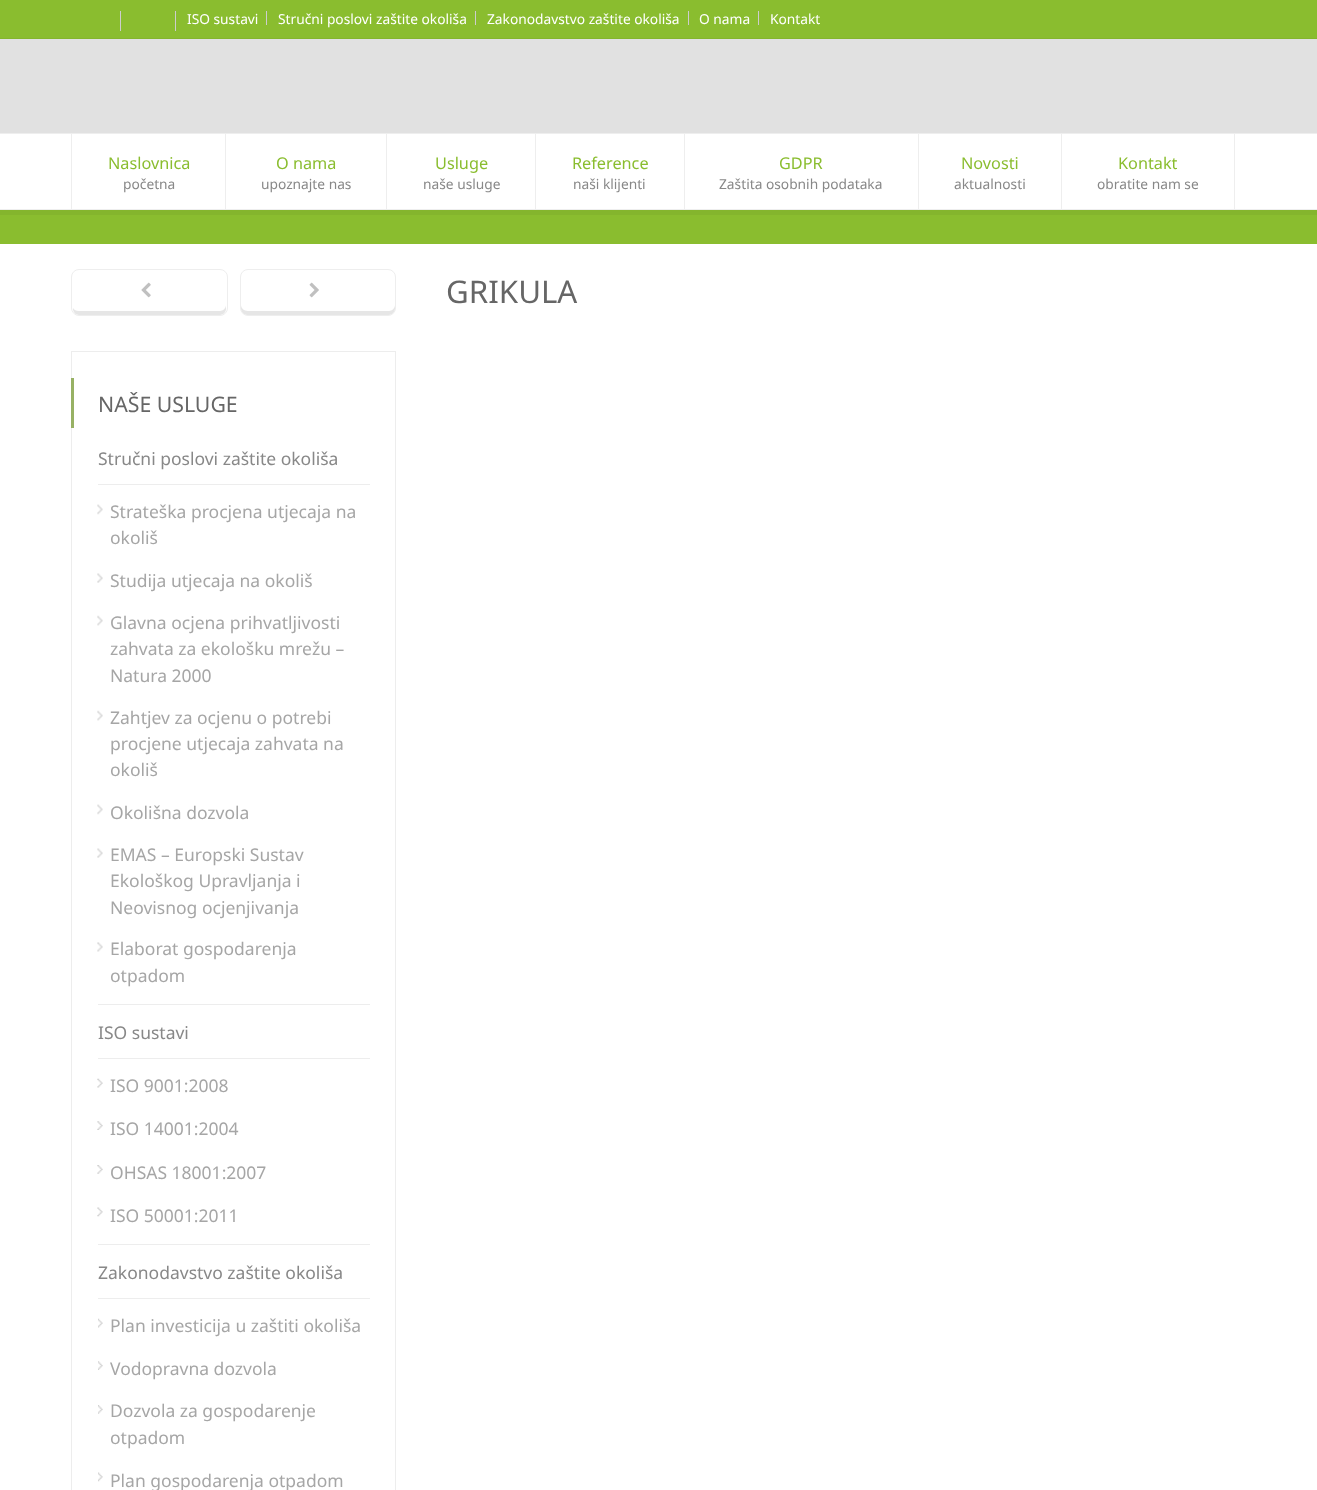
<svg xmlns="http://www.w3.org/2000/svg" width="1317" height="1490">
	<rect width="100%" height="100%" fill="#FFFFFF" />
	<rect x="0" y="0" width="1317" height="38" fill="#8ABD2F" />
	<rect x="0" y="38" width="1317" height="1" fill="#84B52D" />
	<rect x="120" y="11" width="1" height="20" fill="#CDCDCD" />
	<rect x="175" y="11" width="1" height="20" fill="#CDCDCD" />
	<rect x="266" y="11" width="1" height="14" fill="#CDCDCD" />
	<text x="187" y="24" font-family="Noto Sans" font-size="13.75" fill="#FFFFFF">ISO sustavi</text>
	<rect x="475" y="11" width="1" height="14" fill="#CDCDCD" />
	<text x="278" y="24" font-family="Noto Sans" font-size="13.75" fill="#FFFFFF">Stručni poslovi zaštite okoliša</text>
	<rect x="688" y="11" width="1" height="14" fill="#CDCDCD" />
	<text x="487" y="24" font-family="Noto Sans" font-size="13.75" fill="#FFFFFF">Zakonodavstvo zaštite okoliša</text>
	<rect x="758" y="11" width="1" height="14" fill="#CDCDCD" />
	<g font-family="Noto Sans" font-size="13.75" fill="#FFFFFF">
		<text x="699" y="24">O nama</text>
		<text x="770" y="24">Kontakt</text>
	</g>
	<rect x="0" y="39" width="1317" height="94" fill="#E1E1E1" />
	<path d="M0 210V215H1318V138V210Z" fill="#84B52D" />
	<rect x="0" y="133" width="1317" height="1" fill="#EEEEEE" />
	<rect x="0" y="209" width="1317" height="1" fill="#EEEEEE" />
	<rect x="225" y="134" width="1" height="75" fill="#EEEEEE" />
	<rect x="71" y="134" width="1" height="75" fill="#EEEEEE" />
	<text x="108" y="169" font-family="Noto Sans" font-size="16.25" fill="#8ABD2F">Naslovnica</text>
	<text x="123" y="189" font-family="Noto Sans" font-size="13.75" fill="#888888">početna</text>
	<rect x="386" y="134" width="1" height="75" fill="#EEEEEE" />
	<text x="276" y="169" font-family="Noto Sans" font-size="16.25" fill="#8ABD2F">O nama</text>
	<text x="261" y="189" font-family="Noto Sans" font-size="13.75" fill="#888888">upoznajte nas</text>
	<rect x="535" y="134" width="1" height="75" fill="#EEEEEE" />
	<text x="435" y="169" font-family="Noto Sans" font-size="16.25" fill="#8ABD2F">Usluge</text>
	<text x="423" y="189" font-family="Noto Sans" font-size="13.75" fill="#888888">naše usluge</text>
	<rect x="684" y="134" width="1" height="75" fill="#EEEEEE" />
	<text x="572" y="169" font-family="Noto Sans" font-size="16.25" fill="#8ABD2F">Reference</text>
	<text x="573" y="189" font-family="Noto Sans" font-size="13.75" fill="#888888">naši klijenti</text>
	<rect x="918" y="134" width="1" height="75" fill="#EEEEEE" />
	<text x="779" y="169" font-family="Noto Sans" font-size="16.25" fill="#8ABD2F">GDPR</text>
	<text x="719" y="189" font-family="Noto Sans" font-size="13.75" fill="#888888">Zaštita osobnih podataka</text>
	<rect x="1061" y="134" width="1" height="75" fill="#EEEEEE" />
	<text x="961" y="169" font-family="Noto Sans" font-size="16.25" fill="#8ABD2F">Novosti</text>
	<text x="954" y="189" font-family="Noto Sans" font-size="13.75" fill="#888888">aktualnosti</text>
	<rect x="1234" y="134" width="1" height="75" fill="#EEEEEE" />
	<text x="1118" y="169" font-family="Noto Sans" font-size="16.25" fill="#8ABD2F">Kontakt</text>
	<text x="1097" y="189" font-family="Noto Sans" font-size="13.75" fill="#888888">obratite nam se</text>
	<rect x="0" y="215" width="1317" height="29" fill="#8ABD2F" />
	<text x="446" y="303" font-family="Noto Sans" font-size="31.25" fill="#666666">GRIKULA</text>
	<path d="M73 308V309C73 312 76 315 79 315H220C223 315 226 312 226 309V305C226 308 223 311 220 311H79C76 311 74 310 73 308Z" fill="#E6E6E6" />
	<rect x="71.5" y="269.5" width="156" height="46" rx="7.5" fill="none" stroke="#EEEEEE" />
	<image x="141" y="282" width="10" height="16" href="assets/img1.png" />
	<path d="M241 305V309C241 312 244 315 247 315H389C392 315 395 312 395 309V305C395 308 392 311 389 311H248C244 311 241 308 241 305Z" fill="#E6E6E6" />
	<rect x="240.5" y="269.5" width="155" height="46" rx="7.5" fill="none" stroke="#EEEEEE" />
	<image x="309" y="282" width="10" height="16" href="assets/img2.png" />
	<rect x="71.5" y="351.5" width="324" height="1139" fill="none" stroke="#EDEDED" />
	<rect x="71" y="378" width="3" height="50" fill="#97B164" />
	<text x="98" y="412" font-family="Noto Sans" font-size="21.25" fill="#666666">NAŠE USLUGE</text>
	<rect x="98" y="1004" width="272" height="1" fill="#EDEDED" />
	<text x="98" y="465" font-family="Noto Sans" font-size="17.5" fill="#888888">Stručni poslovi zaštite okoliša</text>
	<rect x="98" y="484" width="272" height="1" fill="#EDEDED" />
	<image x="97" y="504" width="6" height="11" href="assets/img3.png" />
	<g font-family="Noto Sans" font-size="17.5" fill="#A6A6A6">
		<text x="110" y="518">Strateška procjena utjecaja na</text>
		<text x="110" y="544">okoliš</text>
	</g>
	<image x="97" y="573" width="6" height="10" href="assets/img4.png" />
	<text x="110" y="587" font-family="Noto Sans" font-size="17.5" fill="#A6A6A6">Studija utjecaja na okoliš</text>
	<image x="97" y="615" width="6" height="11" href="assets/img5.png" />
	<g font-family="Noto Sans" font-size="17.5" fill="#A6A6A6">
		<text x="110" y="629">Glavna ocjena prihvatljivosti</text>
		<text x="110" y="655">zahvata za ekološku mrežu –</text>
		<text x="110" y="682">Natura 2000</text>
	</g>
	<image x="97" y="710" width="6" height="11" href="assets/img5.png" />
	<g font-family="Noto Sans" font-size="17.5" fill="#A6A6A6">
		<text x="110" y="724">Zahtjev za ocjenu o potrebi</text>
		<text x="110" y="750">procjene utjecaja zahvata na</text>
		<text x="110" y="776">okoliš</text>
	</g>
	<image x="97" y="804" width="6" height="11" href="assets/img3.png" />
	<text x="110" y="819" font-family="Noto Sans" font-size="17.5" fill="#A6A6A6">Okolišna dozvola</text>
	<image x="97" y="848" width="6" height="10" href="assets/img4.png" />
	<g font-family="Noto Sans" font-size="17.5" fill="#A6A6A6">
		<text x="110" y="861">EMAS – Europski Sustav</text>
		<text x="110" y="887">Ekološkog Upravljanja i</text>
		<text x="110" y="914">Neovisnog ocjenjivanja</text>
	</g>
	<image x="97" y="942" width="6" height="10" href="assets/img6.png" />
	<g font-family="Noto Sans" font-size="17.5" fill="#A6A6A6">
		<text x="110" y="955">Elaborat gospodarenja</text>
		<text x="110" y="982">otpadom</text>
	</g>
	<rect x="98" y="1244" width="272" height="1" fill="#EDEDED" />
	<text x="98" y="1039" font-family="Noto Sans" font-size="17.5" fill="#888888">ISO sustavi</text>
	<rect x="98" y="1058" width="272" height="1" fill="#EDEDED" />
	<image x="97" y="1078" width="6" height="10" href="assets/img7.png" />
	<text x="110" y="1092" font-family="Noto Sans" font-size="17.5" fill="#A6A6A6">ISO 9001:2008</text>
	<image x="97" y="1121" width="6" height="9" href="assets/img8.png" />
	<text x="110" y="1135" font-family="Noto Sans" font-size="17.5" fill="#A6A6A6">ISO 14001:2004</text>
	<image x="97" y="1165" width="6" height="9" href="assets/img9.png" />
	<text x="110" y="1179" font-family="Noto Sans" font-size="17.5" fill="#A6A6A6">OHSAS 18001:2007</text>
	<image x="97" y="1207" width="6" height="10" href="assets/img10.png" />
	<text x="110" y="1222" font-family="Noto Sans" font-size="17.5" fill="#A6A6A6">ISO 50001:2011</text>
	<text x="98" y="1279" font-family="Noto Sans" font-size="17.5" fill="#888888">Zakonodavstvo zaštite okoliša</text>
	<rect x="98" y="1298" width="272" height="1" fill="#EDEDED" />
	<image x="98" y="1318" width="5" height="10" href="assets/img11.png" />
	<text x="110" y="1332" font-family="Noto Sans" font-size="17.5" fill="#A6A6A6">Plan investicija u zaštiti okoliša</text>
	<image x="98" y="1361" width="5" height="9" href="assets/img12.png" />
	<text x="110" y="1375" font-family="Noto Sans" font-size="17.5" fill="#A6A6A6">Vodopravna dozvola</text>
	<image x="98" y="1405" width="5" height="9" href="assets/img13.png" />
	<g font-family="Noto Sans" font-size="17.5" fill="#A6A6A6">
		<text x="110" y="1417">Dozvola za gospodarenje</text>
		<text x="110" y="1444">otpadom</text>
	</g>
	<image x="98" y="1472" width="5" height="10" href="assets/img14.png" />
	<text x="110" y="1487" font-family="Noto Sans" font-size="17.5" fill="#A6A6A6">Plan gospodarenja otpadom</text>
</svg>
